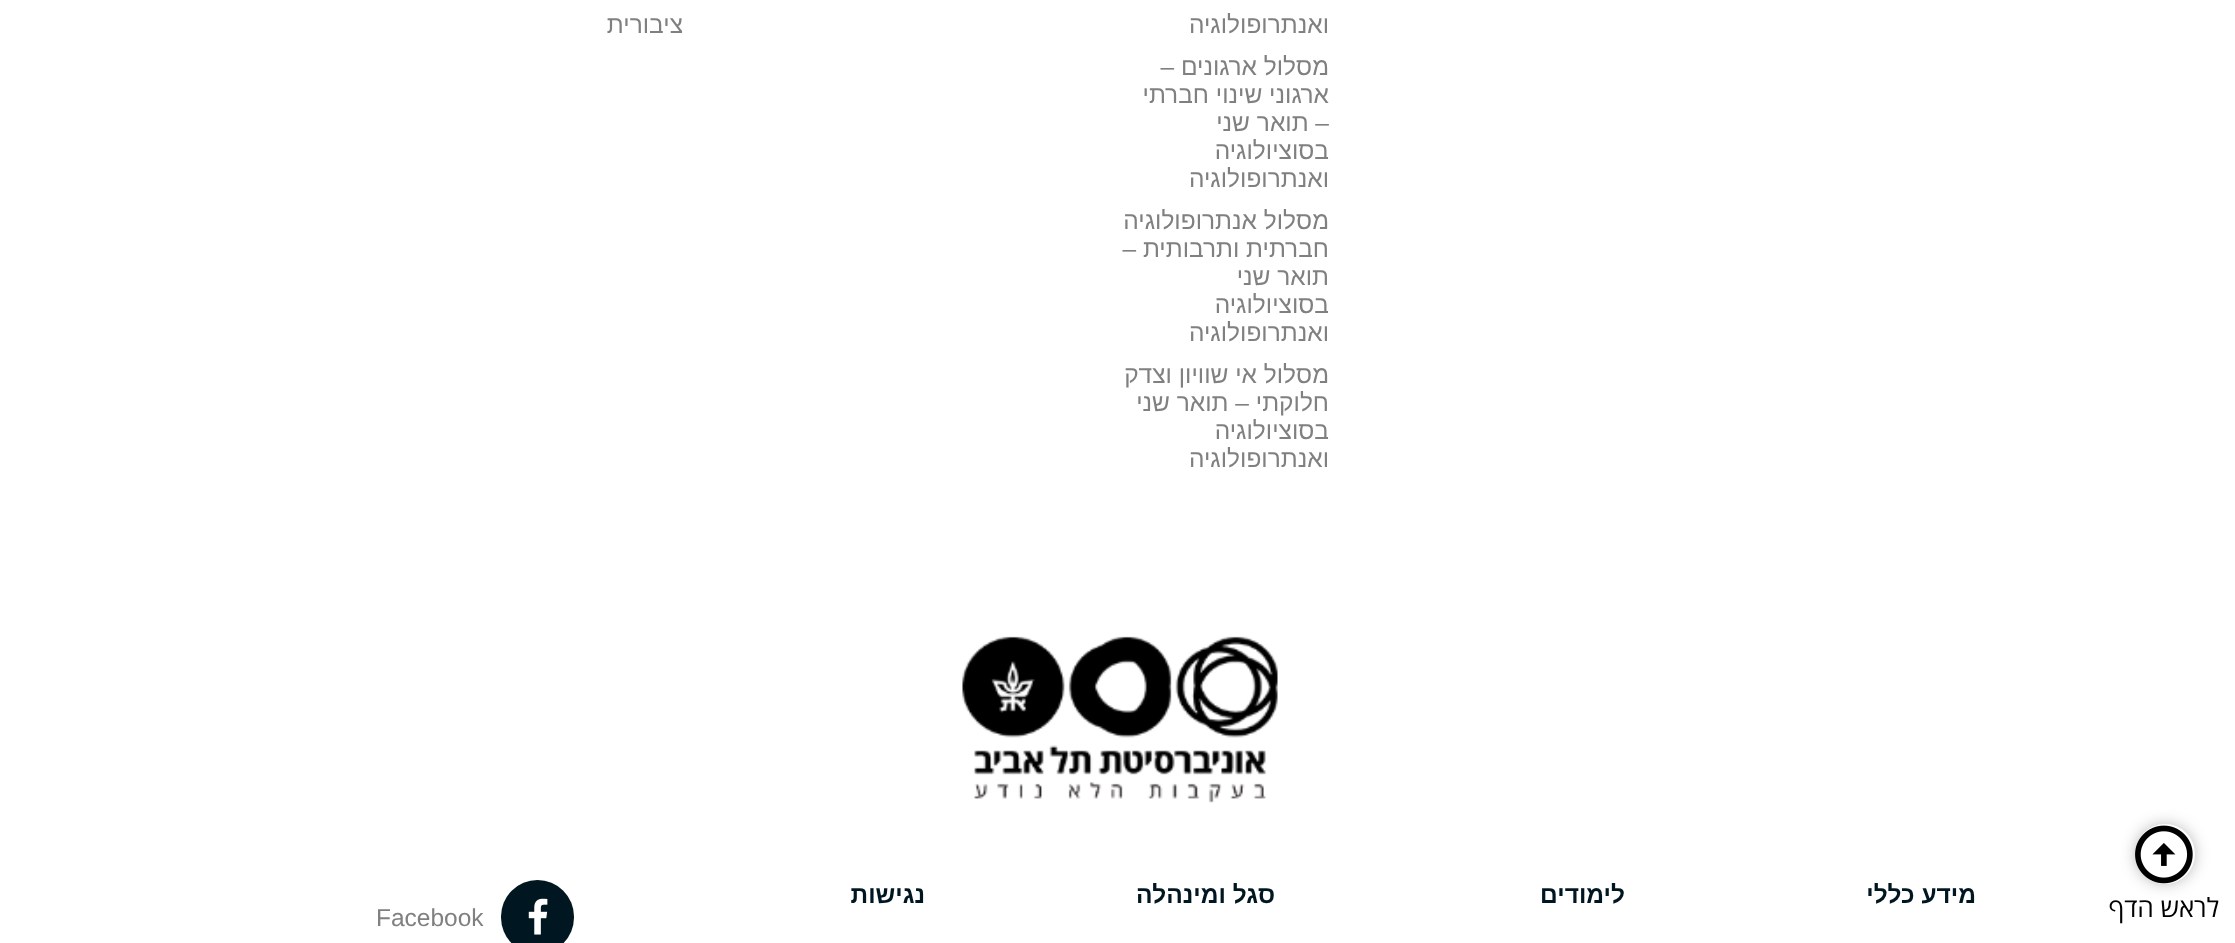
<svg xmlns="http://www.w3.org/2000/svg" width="2235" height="943">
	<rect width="100%" height="100%" fill="#FFFFFF" />
	<g font-family="Liberation Sans" font-size="24.5" direction="rtl" fill="#808080">
		<text x="1329" y="33">ואנתרופולוגיה</text>
		<text x="1329" y="75">מסלול ארגונים –</text>
		<text x="1329" y="103">ארגוני שינוי חברתי</text>
		<text x="1329" y="131">– תואר שני</text>
		<text x="1329" y="159">בסוציולוגיה</text>
		<text x="1329" y="187">ואנתרופולוגיה</text>
		<text x="1329" y="229">מסלול אנתרופולוגיה</text>
		<text x="1329" y="257">חברתית ותרבותית –</text>
		<text x="1329" y="285">תואר שני</text>
		<text x="1329" y="313">בסוציולוגיה</text>
		<text x="1329" y="341">ואנתרופולוגיה</text>
		<text x="1329" y="383">מסלול אי שוויון וצדק</text>
		<text x="1329" y="411">חלוקתי – תואר שני</text>
		<text x="1329" y="439">בסוציולוגיה</text>
		<text x="1329" y="467">ואנתרופולוגיה</text>
		<text x="683" y="33">ציבורית</text>
	</g>
	<rect x="2139" y="828" width="52" height="52" rx="26" fill="#000000" fill-opacity="0.46" filter="blur(9px)" />
	<circle cx="2165" cy="854" r="30" fill="#FFFFFF" />
	<image x="2135" y="825" width="58" height="59" href="assets/img1.png" />
	<text x="2219" y="917" font-family="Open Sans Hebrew" font-size="26.25" direction="rtl" fill="#000000">לראש הדף</text>
	<image x="962" y="636" width="316" height="167" href="assets/img2.png" />
	<g font-family="Liberation Sans" font-size="24.5" font-weight="700" direction="rtl" fill="#001721">
		<text x="1976" y="903">מידע כללי</text>
		<text x="1625" y="903">לימודים</text>
		<text x="1275" y="903">סגל ומינהלה</text>
		<text x="925" y="903">נגישות</text>
	</g>
	<rect x="501" y="880" width="73" height="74" rx="36.5" fill="#001721" />
	<image x="528" y="898" width="20" height="37" href="assets/img3.png" />
	<text x="376" y="926" font-family="Liberation Sans" font-size="24.5" fill="#808080">Facebook</text>
</svg>
